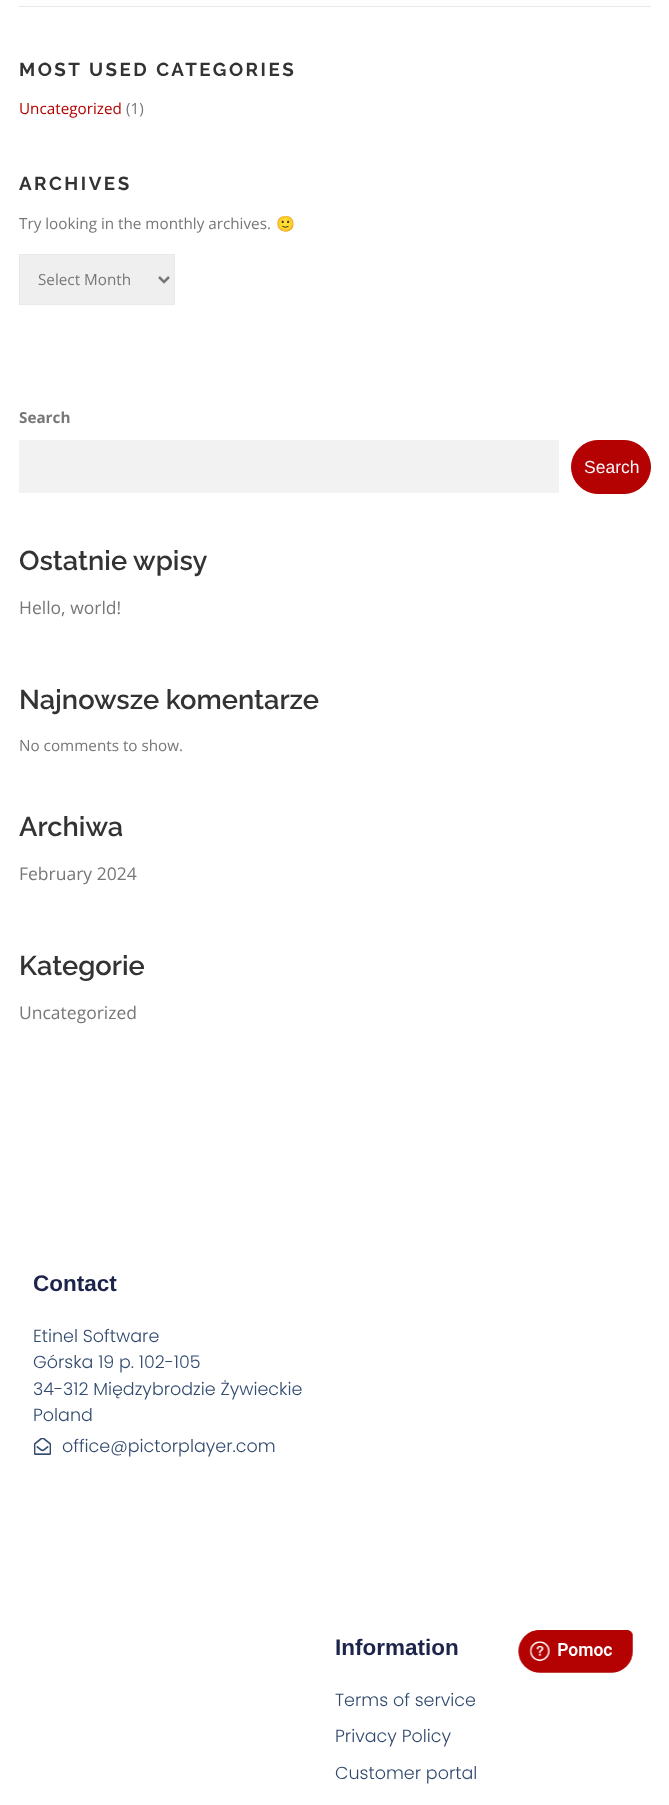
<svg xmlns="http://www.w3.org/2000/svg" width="669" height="1805">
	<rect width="100%" height="100%" fill="#FFFFFF" />
	<rect x="19" y="6" width="632" height="1" fill="#E9E9E9" />
	<text x="19" y="76" font-family="Raleway" font-size="18.75" font-weight="700" letter-spacing="2.5" fill="#333333">MOST USED CATEGORIES</text>
	<text x="19" y="114" font-family="Open Sans" font-size="15.25" fill="#B40101">Uncategorized</text>
	<text x="126" y="114" font-family="Open Sans" font-size="15.25" fill="#777777">(1)</text>
	<text x="19" y="190" font-family="Raleway" font-size="18.75" font-weight="700" letter-spacing="2.5" fill="#333333">ARCHIVES</text>
	<text x="19" y="229" font-family="Open Sans" font-size="15.25" fill="#777777">Try looking in the monthly archives.</text>
	<text x="276" y="229" font-family="Noto Color Emoji" font-size="15.25" fill="#777777">🙂</text>
	<rect x="19.5" y="254.5" width="155" height="50" fill="#EFEFEF" stroke="#E9E9E9" />
	<path d="M159 277L164 282L169 277" fill="none" stroke="#777777" stroke-width="2.5" />
	<text x="38" y="285" font-family="Open Sans" font-size="15.25" fill="#777777">Select Month</text>
	<text x="19" y="423" font-family="Open Sans" font-size="15.25" font-weight="700" fill="#777777">Search</text>
	<rect x="19" y="440" width="540" height="53" fill="#F2F2F2" />
	<rect x="571.5" y="440.5" width="79" height="53" rx="26.5" fill="#B40101" stroke="#B40101" />
	<text x="584" y="473" font-family="Liberation Sans" font-size="17.5" fill="#F3F5F8">Search</text>
	<text x="19" y="570" font-family="Raleway" font-size="27.25" font-weight="600" fill="#333333">Ostatnie wpisy</text>
	<text x="19" y="614" font-family="Open Sans" font-size="17.5" fill="#777777">Hello, world!</text>
	<text x="19" y="709" font-family="Raleway" font-size="27.25" font-weight="600" fill="#333333">Najnowsze komentarze</text>
	<text x="19" y="751" font-family="Open Sans" font-size="15.25" fill="#777777">No comments to show.</text>
	<text x="19" y="836" font-family="Raleway" font-size="27.25" font-weight="600" fill="#333333">Archiwa</text>
	<text x="19" y="880" font-family="Open Sans" font-size="17.5" fill="#777777">February 2024</text>
	<text x="19" y="975" font-family="Raleway" font-size="27.25" font-weight="600" fill="#333333">Kategorie</text>
	<text x="19" y="1019" font-family="Open Sans" font-size="17.5" fill="#777777">Uncategorized</text>
	<text x="33" y="1291" font-family="Liberation Sans" font-size="22.5" font-weight="700" fill="#1C244B">Contact</text>
	<g font-family="Poppins" font-size="17.5" font-weight="300" fill="#324A6D">
		<text x="33" y="1342">Etinel Software</text>
		<text x="33" y="1368">Górska 19 p. 102-105</text>
		<text x="33" y="1395">34-312 Międzybrodzie Żywieckie</text>
		<text x="33" y="1421">Poland</text>
	</g>
	<image x="34" y="1438" width="17" height="17" href="assets/img1.png" />
	<text x="62" y="1452" font-family="Poppins" font-size="17.5" font-weight="300" fill="#324A6D">office@pictorplayer.com</text>
	<text x="335" y="1655" font-family="Liberation Sans" font-size="22.5" font-weight="700" fill="#1C244B">Information</text>
	<g font-family="Poppins" font-size="17.5" font-weight="300" fill="#324A6D">
		<text x="335" y="1706">Terms of service</text>
		<text x="335" y="1742">Privacy Policy</text>
		<text x="335" y="1779">Customer portal</text>
	</g>
	<image x="518" y="1630" width="115" height="43" href="assets/img2.png" />
	<image x="518" y="1630" width="115" height="43" href="assets/img3.png" />
</svg>
